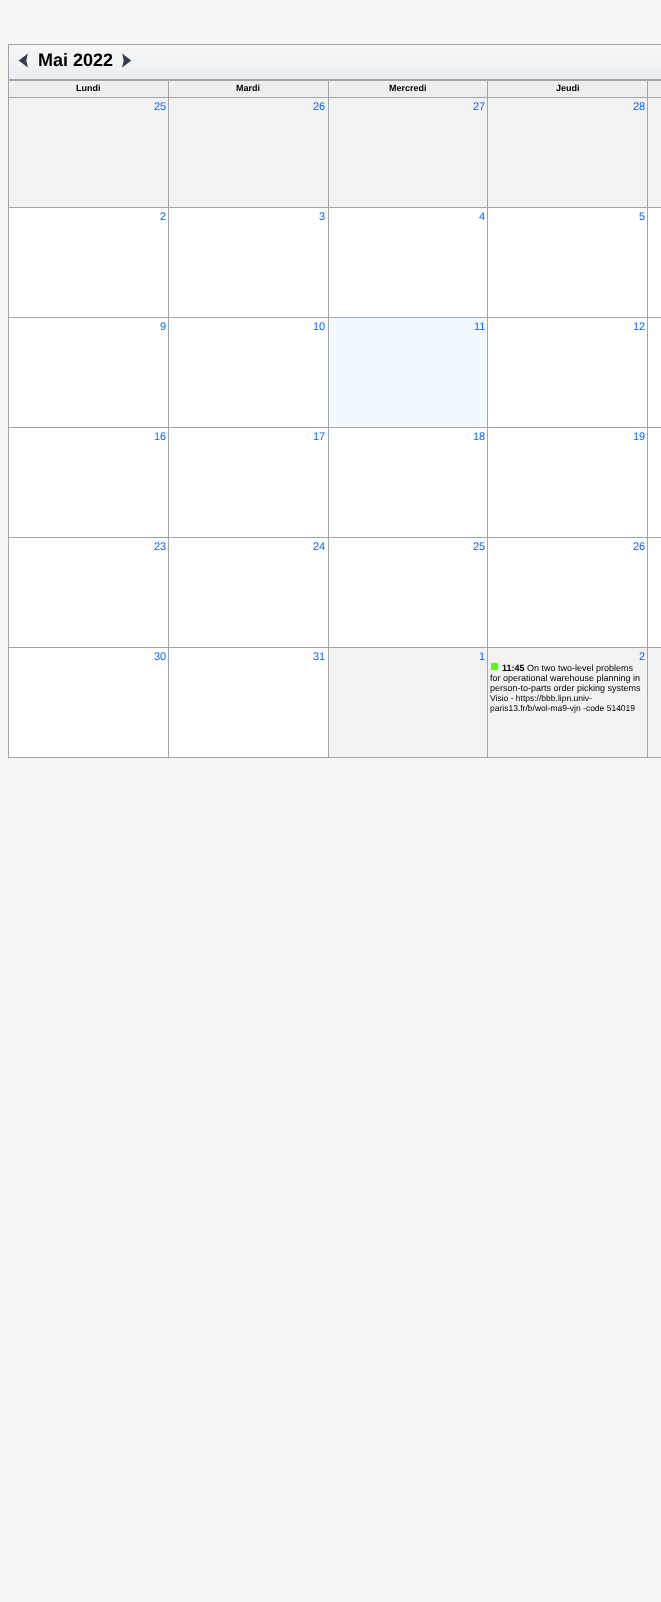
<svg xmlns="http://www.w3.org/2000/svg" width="661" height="1602">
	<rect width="100%" height="100%" fill="#F6F6F5" />
	<rect x="8.5" y="44.5" width="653" height="35" fill="none" stroke="#A1A5A9" />
	<image x="9" y="45" width="652" height="34" href="assets/img1.png" />
	<image x="18" y="53" width="10" height="15" href="assets/img2.png" />
	<text x="38" y="66" font-family="Liberation Sans" font-size="18" font-weight="700" fill="#000000">Mai 2022</text>
	<image x="122" y="53" width="10" height="15" href="assets/img3.png" />
	<rect x="8" y="80" width="653" height="678" fill="#A1A5A9" />
	<rect x="9" y="81" width="159" height="16" fill="#EEEEEE" />
	<text x="76" y="91" font-family="Liberation Sans" font-size="9" font-weight="700" fill="#000000">Lundi</text>
	<rect x="169" y="81" width="159" height="16" fill="#EEEEEE" />
	<text x="236" y="91" font-family="Liberation Sans" font-size="9" font-weight="700" fill="#000000">Mardi</text>
	<rect x="329" y="81" width="158" height="16" fill="#EEEEEE" />
	<text x="389" y="91" font-family="Liberation Sans" font-size="9" font-weight="700" fill="#000000">Mercredi</text>
	<rect x="488" y="81" width="159" height="16" fill="#EEEEEE" />
	<text x="556" y="91" font-family="Liberation Sans" font-size="9" font-weight="700" fill="#000000">Jeudi</text>
	<rect x="648" y="81" width="13" height="16" fill="#EEEEEE" />
	<rect x="9" y="98" width="159" height="109" fill="#F2F2F2" />
	<text x="154" y="110" font-family="Liberation Sans" font-size="11" fill="#0066FF">25</text>
	<rect x="169" y="98" width="159" height="109" fill="#F2F2F2" />
	<text x="313" y="110" font-family="Liberation Sans" font-size="11" fill="#0066FF">26</text>
	<rect x="329" y="98" width="158" height="109" fill="#F2F2F2" />
	<text x="473" y="110" font-family="Liberation Sans" font-size="11" fill="#0066FF">27</text>
	<rect x="488" y="98" width="159" height="109" fill="#F2F2F2" />
	<text x="633" y="110" font-family="Liberation Sans" font-size="11" fill="#0066FF">28</text>
	<rect x="648" y="98" width="13" height="109" fill="#F2F2F2" />
	<rect x="9" y="208" width="159" height="109" fill="#FFFFFF" />
	<text x="160" y="220" font-family="Liberation Sans" font-size="11" fill="#0066FF">2</text>
	<rect x="169" y="208" width="159" height="109" fill="#FFFFFF" />
	<text x="319" y="220" font-family="Liberation Sans" font-size="11" fill="#0066FF">3</text>
	<rect x="329" y="208" width="158" height="109" fill="#FFFFFF" />
	<text x="479" y="220" font-family="Liberation Sans" font-size="11" fill="#0066FF">4</text>
	<rect x="488" y="208" width="159" height="109" fill="#FFFFFF" />
	<text x="639" y="220" font-family="Liberation Sans" font-size="11" fill="#0066FF">5</text>
	<rect x="648" y="208" width="13" height="109" fill="#FFFFFF" />
	<rect x="9" y="318" width="159" height="109" fill="#FFFFFF" />
	<text x="160" y="330" font-family="Liberation Sans" font-size="11" fill="#0066FF">9</text>
	<rect x="169" y="318" width="159" height="109" fill="#FFFFFF" />
	<text x="313" y="330" font-family="Liberation Sans" font-size="11" fill="#0066FF">10</text>
	<rect x="329" y="318" width="158" height="109" fill="#F2F9FF" />
	<text x="474" y="330" font-family="Liberation Sans" font-size="11" fill="#0066FF">11</text>
	<rect x="488" y="318" width="159" height="109" fill="#FFFFFF" />
	<text x="633" y="330" font-family="Liberation Sans" font-size="11" fill="#0066FF">12</text>
	<rect x="648" y="318" width="13" height="109" fill="#FFFFFF" />
	<rect x="9" y="428" width="159" height="109" fill="#FFFFFF" />
	<text x="154" y="440" font-family="Liberation Sans" font-size="11" fill="#0066FF">16</text>
	<rect x="169" y="428" width="159" height="109" fill="#FFFFFF" />
	<text x="313" y="440" font-family="Liberation Sans" font-size="11" fill="#0066FF">17</text>
	<rect x="329" y="428" width="158" height="109" fill="#FFFFFF" />
	<text x="473" y="440" font-family="Liberation Sans" font-size="11" fill="#0066FF">18</text>
	<rect x="488" y="428" width="159" height="109" fill="#FFFFFF" />
	<text x="633" y="440" font-family="Liberation Sans" font-size="11" fill="#0066FF">19</text>
	<rect x="648" y="428" width="13" height="109" fill="#FFFFFF" />
	<rect x="9" y="538" width="159" height="109" fill="#FFFFFF" />
	<text x="154" y="550" font-family="Liberation Sans" font-size="11" fill="#0066FF">23</text>
	<rect x="169" y="538" width="159" height="109" fill="#FFFFFF" />
	<text x="313" y="550" font-family="Liberation Sans" font-size="11" fill="#0066FF">24</text>
	<rect x="329" y="538" width="158" height="109" fill="#FFFFFF" />
	<text x="473" y="550" font-family="Liberation Sans" font-size="11" fill="#0066FF">25</text>
	<rect x="488" y="538" width="159" height="109" fill="#FFFFFF" />
	<text x="633" y="550" font-family="Liberation Sans" font-size="11" fill="#0066FF">26</text>
	<rect x="648" y="538" width="13" height="109" fill="#FFFFFF" />
	<rect x="9" y="648" width="159" height="109" fill="#FFFFFF" />
	<text x="154" y="660" font-family="Liberation Sans" font-size="11" fill="#0066FF">30</text>
	<rect x="169" y="648" width="159" height="109" fill="#FFFFFF" />
	<text x="313" y="660" font-family="Liberation Sans" font-size="11" fill="#0066FF">31</text>
	<rect x="329" y="648" width="158" height="109" fill="#F2F2F2" />
	<text x="479" y="660" font-family="Liberation Sans" font-size="11" fill="#0066FF">1</text>
	<rect x="488" y="648" width="159" height="109" fill="#F2F2F2" />
	<text x="639" y="660" font-family="Liberation Sans" font-size="11" fill="#0066FF">2</text>
	<rect x="491" y="663" width="7" height="7" fill="#51FF00" />
	<text x="502" y="671" font-family="Liberation Sans" font-size="9" font-weight="700" fill="#000000">11:45</text>
	<g font-family="Liberation Sans" font-size="9" fill="#000000">
		<text x="527" y="671">On two two-level problems</text>
		<text x="490" y="681">for operational warehouse planning in</text>
		<text x="490" y="691">person-to-parts order picking systems</text>
	</g>
	<g font-family="Liberation Sans" font-size="8.5" fill="#000000">
		<text x="490" y="701">Visio - https://bbb.lipn.univ-</text>
		<text x="490" y="711">paris13.fr/b/wol-ma9-vjn -code 514019</text>
	</g>
	<rect x="648" y="648" width="13" height="109" fill="#F2F2F2" />
</svg>
